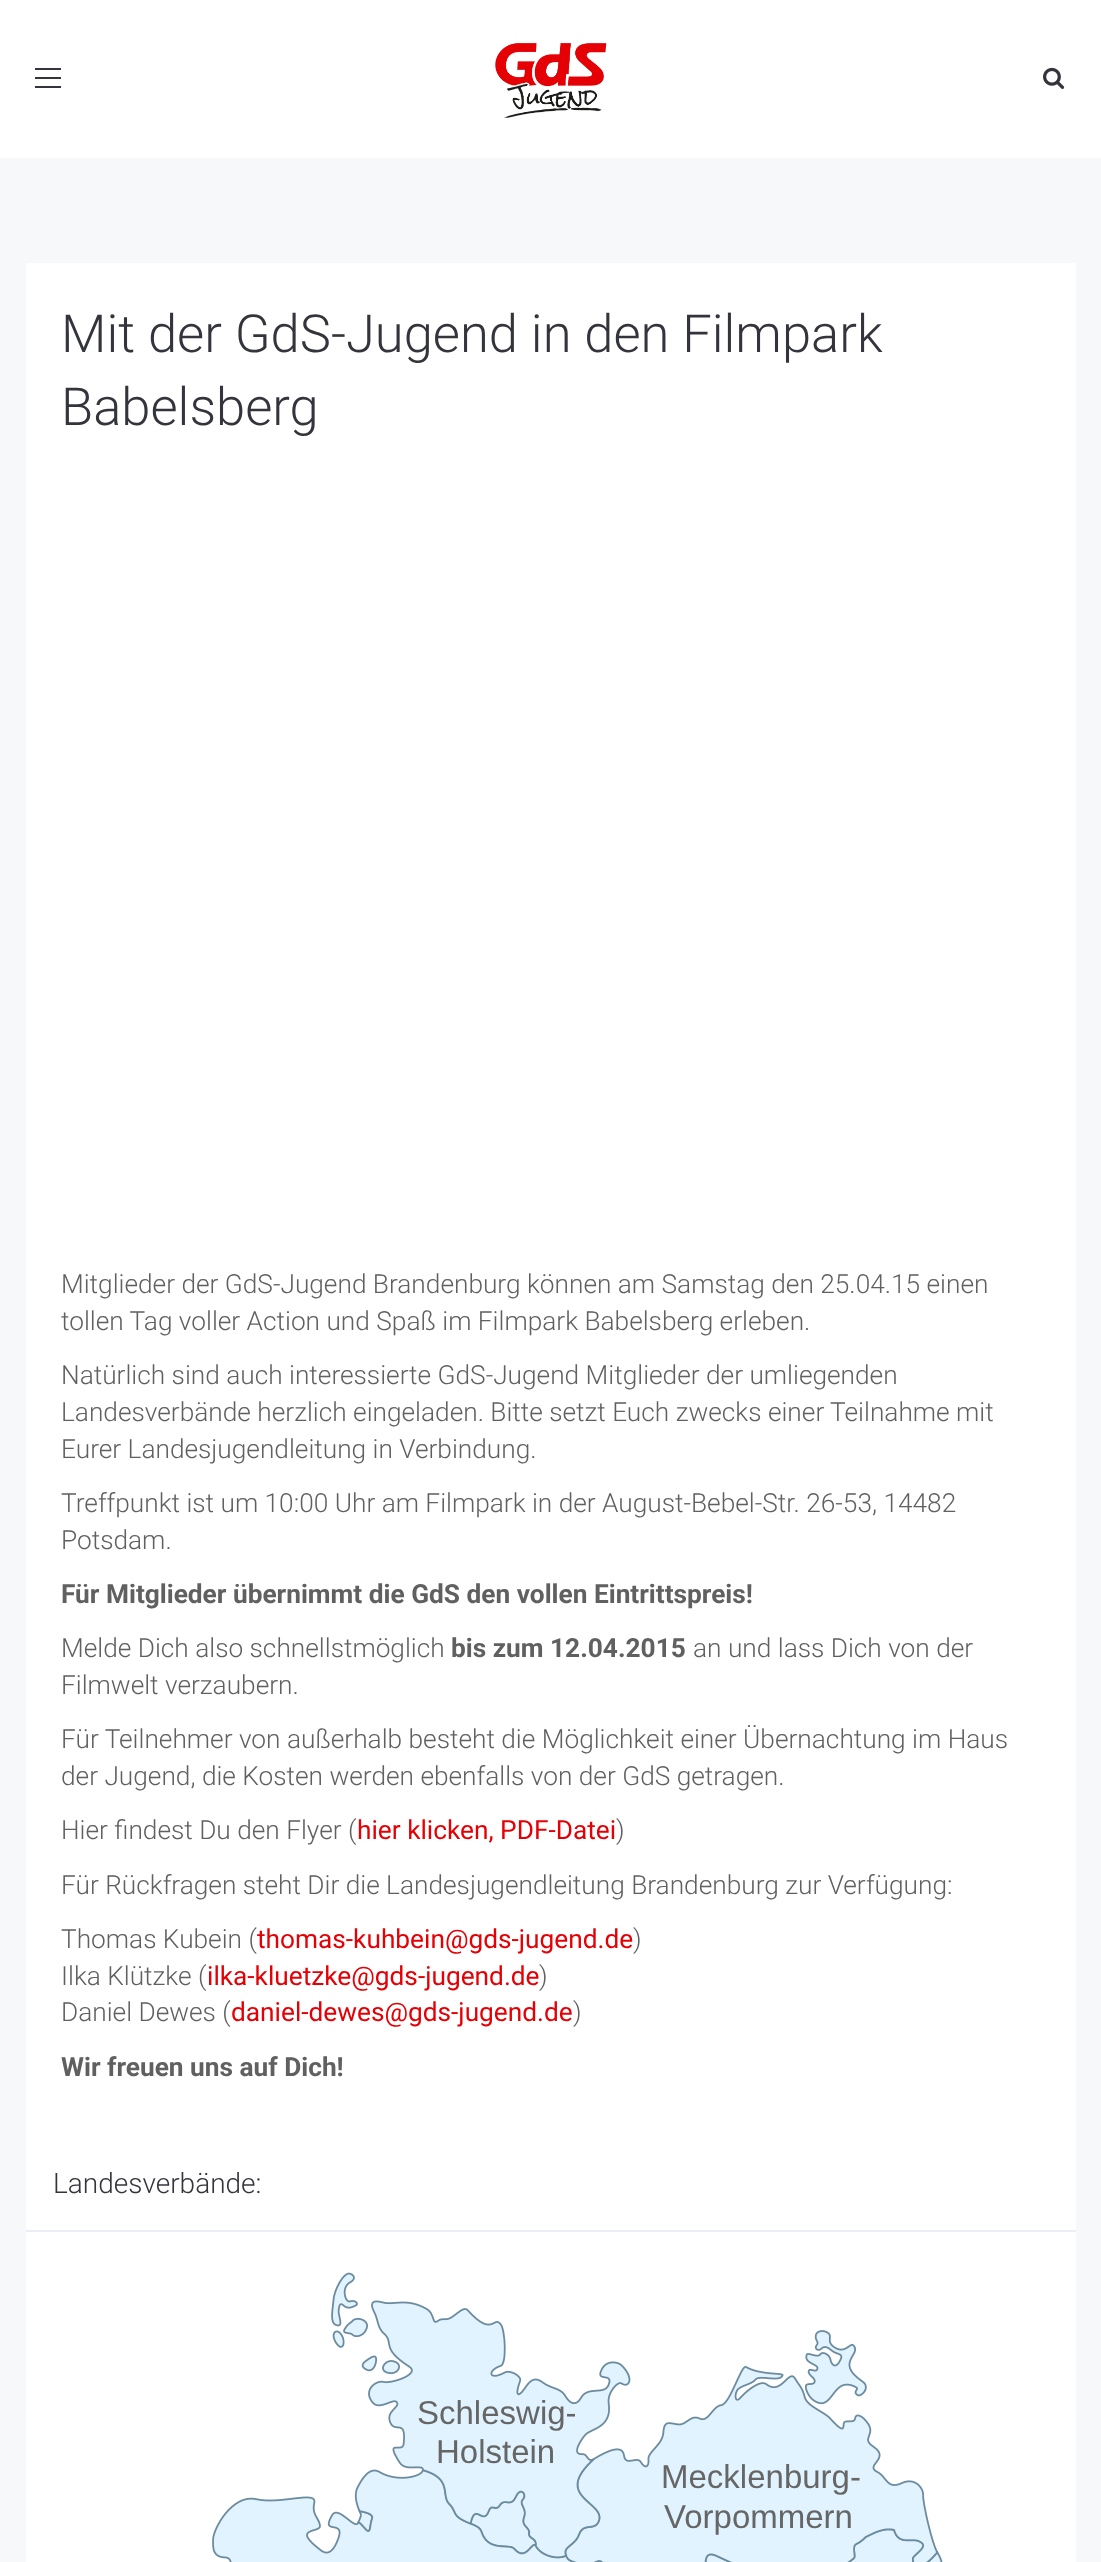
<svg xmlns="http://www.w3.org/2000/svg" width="1101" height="2562">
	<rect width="100%" height="100%" fill="#FFFFFF" />
	<rect x="35" y="86" width="26" height="2" fill="#34343C" />
	<rect x="35" y="68" width="26" height="2" fill="#34343C" />
	<rect x="35" y="77" width="26" height="2" fill="#34343C" />
	<image x="495" y="43" width="112" height="75" href="assets/img1.png" />
	<image x="1043" y="67" width="22" height="22" href="assets/img2.png" />
	<rect x="0" y="158" width="1101" height="2404" fill="#F7F8FA" />
	<rect x="26" y="263" width="1050" height="2299" fill="#FFFFFF" />
	<g font-family="Roboto" font-size="52.5" font-weight="300" fill="#34343C">
		<text x="61" y="352">Mit der GdS-Jugend in den Filmpark</text>
		<text x="61" y="425">Babelsberg</text>
	</g>
	<g font-family="Roboto" font-size="26.25" font-weight="300" fill="#606060">
		<text x="61" y="1293">Mitglieder der GdS-Jugend Brandenburg können am Samstag den 25.04.15 einen</text>
		<text x="61" y="1330">tollen Tag voller Action und Spaß im Filmpark Babelsberg erleben.</text>
		<text x="61" y="1384">Natürlich sind auch interessierte GdS-Jugend Mitglieder der umliegenden</text>
		<text x="61" y="1421">Landesverbände herzlich eingeladen. Bitte setzt Euch zwecks einer Teilnahme mit</text>
		<text x="61" y="1458">Eurer Landesjugendleitung in Verbindung.</text>
		<text x="61" y="1512">Treffpunkt ist um 10:00 Uhr am Filmpark in der August-Bebel-Str. 26-53, 14482</text>
		<text x="61" y="1549">Potsdam.</text>
	</g>
	<text x="61" y="1603" font-family="Roboto" font-size="26.25" font-weight="700" fill="#606060">Für Mitglieder übernimmt die GdS den vollen Eintrittspreis!</text>
	<text x="61" y="1657" font-family="Roboto" font-size="26.25" font-weight="300" fill="#606060">Melde Dich also schnellstmöglich</text>
	<text x="451" y="1657" font-family="Roboto" font-size="26.25" font-weight="700" fill="#606060">bis zum 12.04.2015</text>
	<g font-family="Roboto" font-size="26.25" font-weight="300" fill="#606060">
		<text x="693" y="1657">an und lass Dich von der</text>
		<text x="61" y="1694">Filmwelt verzaubern.</text>
		<text x="61" y="1748">Für Teilnehmer von außerhalb besteht die Möglichkeit einer Übernachtung im Haus</text>
		<text x="61" y="1785">der Jugend, die Kosten werden ebenfalls von der GdS getragen.</text>
		<text x="61" y="1839">Hier findest Du den Flyer (</text>
	</g>
	<text x="357" y="1839" font-family="Roboto" font-size="26.25" fill="#E60005">hier klicken, PDF-Datei</text>
	<g font-family="Roboto" font-size="26.25" font-weight="300" fill="#606060">
		<text x="616" y="1839">)</text>
		<text x="61" y="1894">Für Rückfragen steht Dir die Landesjugendleitung Brandenburg zur Verfügung:</text>
		<text x="61" y="1948">Thomas Kubein (</text>
	</g>
	<text x="257" y="1948" font-family="Roboto" font-size="26.25" fill="#E60005">thomas-kuhbein@gds-jugend.de</text>
	<g font-family="Roboto" font-size="26.25" font-weight="300" fill="#606060">
		<text x="633" y="1948">)</text>
		<text x="61" y="1985">Ilka Klützke (</text>
	</g>
	<text x="207" y="1985" font-family="Roboto" font-size="26.25" fill="#E60005">ilka-kluetzke@gds-jugend.de</text>
	<g font-family="Roboto" font-size="26.25" font-weight="300" fill="#606060">
		<text x="539" y="1985">)</text>
		<text x="61" y="2021">Daniel Dewes (</text>
	</g>
	<text x="231" y="2021" font-family="Roboto" font-size="26.25" fill="#E60005">daniel-dewes@gds-jugend.de</text>
	<text x="573" y="2021" font-family="Roboto" font-size="26.25" font-weight="300" fill="#606060">)</text>
	<text x="61" y="2076" font-family="Roboto" font-size="26.25" font-weight="700" fill="#606060">Wir freuen uns auf Dich!</text>
	<rect x="26" y="2230" width="1050" height="2" fill="#EBEEF6" />
	<text x="53" y="2193" font-family="Roboto" font-size="28" font-weight="300" fill="#34343C">Landesverbände:</text>
	<image x="212" y="2272" width="731" height="290" href="assets/img3.png" />
	<g font-family="Liberation Sans" font-size="33" fill="#666666">
		<text x="417" y="2424">Schleswig-</text>
		<text x="436" y="2463">Holstein</text>
		<text x="661" y="2488">Mecklenburg-</text>
		<text x="664" y="2528">Vorpommern</text>
	</g>
</svg>
